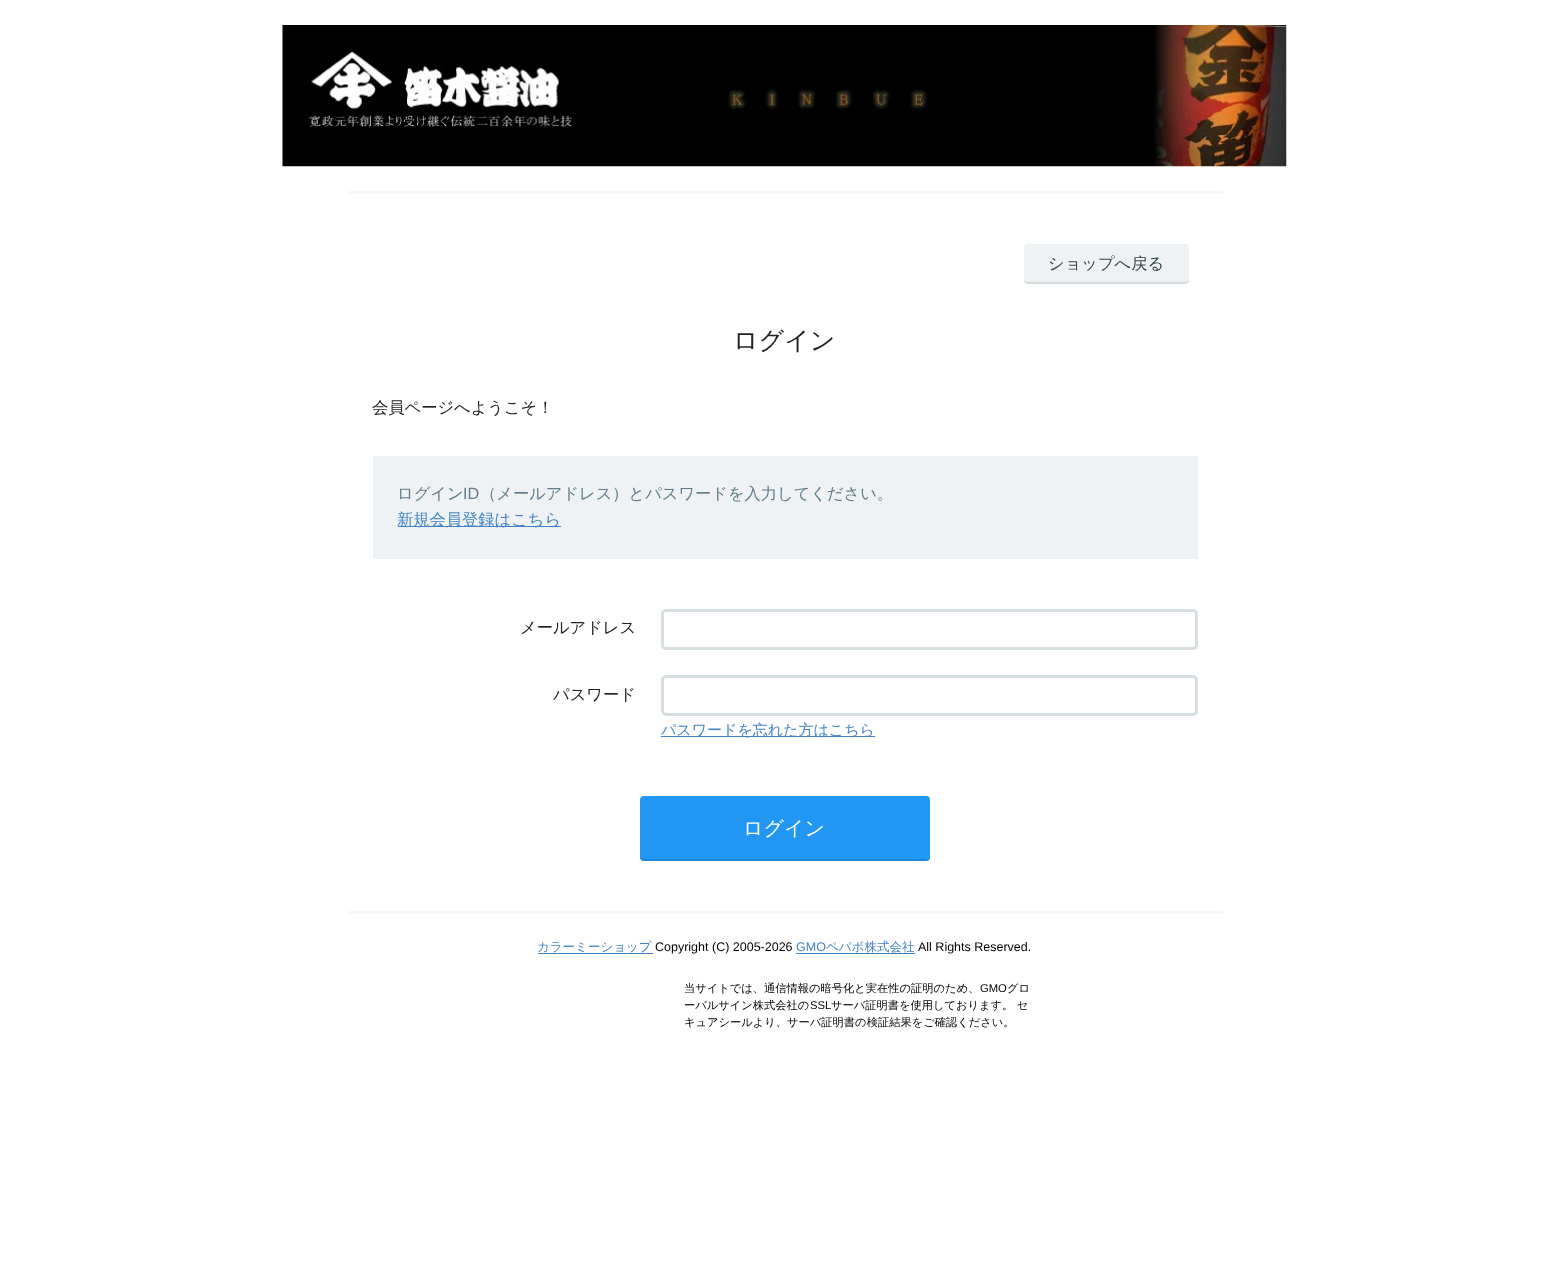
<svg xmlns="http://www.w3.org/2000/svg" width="1568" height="1268">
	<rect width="100%" height="100%" fill="#FFFFFF" />
	<image x="282" y="25" width="1005" height="142" href="assets/img1.png" />
	<rect x="348" y="191" width="875" height="3" fill="#F6F6F6" />
	<rect x="348" y="911" width="875" height="3" fill="#F6F6F6" />
	<rect x="1024" y="244" width="165" height="40" rx="4" fill="#EFF2F4" />
	<path d="M1024 278V280C1024 282 1026 284 1028 284H1185C1187 284 1189 282 1189 280V278C1189 280 1187 282 1185 282H1028C1025 282 1024 280 1024 278Z" fill="#000000" fill-opacity="0.1" />
	<text x="1048" y="269" font-family="WenQuanYi Zen Hei" font-size="16.25" font-weight="500" fill="#35454C">ショップへ戻る</text>
	<text x="733" y="349" font-family="WenQuanYi Zen Hei" font-size="25" font-weight="500" fill="#222222">ログイン</text>
	<text x="372" y="413" font-family="WenQuanYi Zen Hei" font-size="16.25" font-weight="500" fill="#222222">会員ページへようこそ！</text>
	<rect x="373" y="456" width="825" height="103" fill="#EFF2F4" />
	<text x="397" y="499" font-family="WenQuanYi Zen Hei" font-size="16.25" font-weight="500" fill="#607D8B">ログイン</text>
	<text x="463" y="499" font-family="Liberation Sans" font-size="16.25" fill="#607D8B">ID</text>
	<text x="480" y="499" font-family="WenQuanYi Zen Hei" font-size="16.25" font-weight="500" fill="#607D8B">（メールアドレス）とパスワードを入力してください。</text>
	<rect x="398" y="526" width="163" height="1" fill="#4183C4" />
	<text x="397" y="525" font-family="WenQuanYi Zen Hei" font-size="16.25" font-weight="500" fill="#4183C4">新規会員登録はこちら</text>
	<text x="520" y="633" font-family="WenQuanYi Zen Hei" font-size="16.25" font-weight="500" fill="#222222">メールアドレス</text>
	<rect x="662.5" y="610.5" width="534" height="38" rx="3.5" fill="none" stroke="#D7DEE2" stroke-width="3" />
	<text x="553" y="700" font-family="WenQuanYi Zen Hei" font-size="16.25" font-weight="500" fill="#222222">パスワード</text>
	<rect x="662.5" y="676.5" width="534" height="38" rx="3.5" fill="none" stroke="#D7DEE2" stroke-width="3" />
	<rect x="661" y="736" width="214" height="1" fill="#4183C4" />
	<text x="661" y="735" font-family="WenQuanYi Zen Hei" font-size="15" font-weight="500" fill="#4183C4">パスワードを忘れた方はこちら</text>
	<rect x="640" y="796" width="290" height="65" rx="4" fill="#2196F3" />
	<path d="M640 856C640 859 641 861 644 861H926C929 861 930 859 930 856C930 858 928 859 926 859H644C642 859 640 858 640 856Z" fill="#000000" fill-opacity="0.1" />
	<text x="743" y="835" font-family="WenQuanYi Zen Hei" font-size="20" font-weight="500" fill="#FFFFFF">ログイン</text>
	<text x="537" y="951" font-family="WenQuanYi Zen Hei" font-size="12.5" font-weight="500" fill="#4183C4">カラーミーショップ</text>
	<rect x="538" y="953" width="115" height="1" fill="#4183C4" />
	<text x="655" y="951" font-family="Liberation Sans" font-size="12.5" fill="#000000">Copyright (C) 2005-2026</text>
	<text x="796" y="951" font-family="Liberation Sans" font-size="12.5" fill="#4183C4">GMO</text>
	<rect x="796" y="953" width="119" height="1" fill="#4183C4" />
	<text x="826" y="951" font-family="WenQuanYi Zen Hei" font-size="12.5" font-weight="500" fill="#4183C4">ペパボ株式会社</text>
	<text x="918" y="951" font-family="Liberation Sans" font-size="12.5" fill="#000000">All Rights Reserved.</text>
	<text x="684" y="992" font-family="WenQuanYi Zen Hei" font-size="11.25" font-weight="500" fill="#000000">当サイトでは、通信情報の暗号化と実在性の証明のため、</text>
	<text x="980" y="992" font-family="Liberation Sans" font-size="11.25" fill="#000000">GMO</text>
	<g font-family="WenQuanYi Zen Hei" font-size="11.25" font-weight="500" fill="#000000">
		<text x="1007" y="992">グロ</text>
		<text x="684" y="1009">ーバルサイン株式会社の</text>
	</g>
	<text x="810" y="1009" font-family="Liberation Sans" font-size="11.25" fill="#000000">SSL</text>
	<g font-family="WenQuanYi Zen Hei" font-size="11.25" font-weight="500" fill="#000000">
		<text x="831" y="1009">サーバ証明書を使用しております。 セ</text>
		<text x="684" y="1026">キュアシールより、サーバ証明書の検証結果をご確認ください。</text>
	</g>
</svg>
